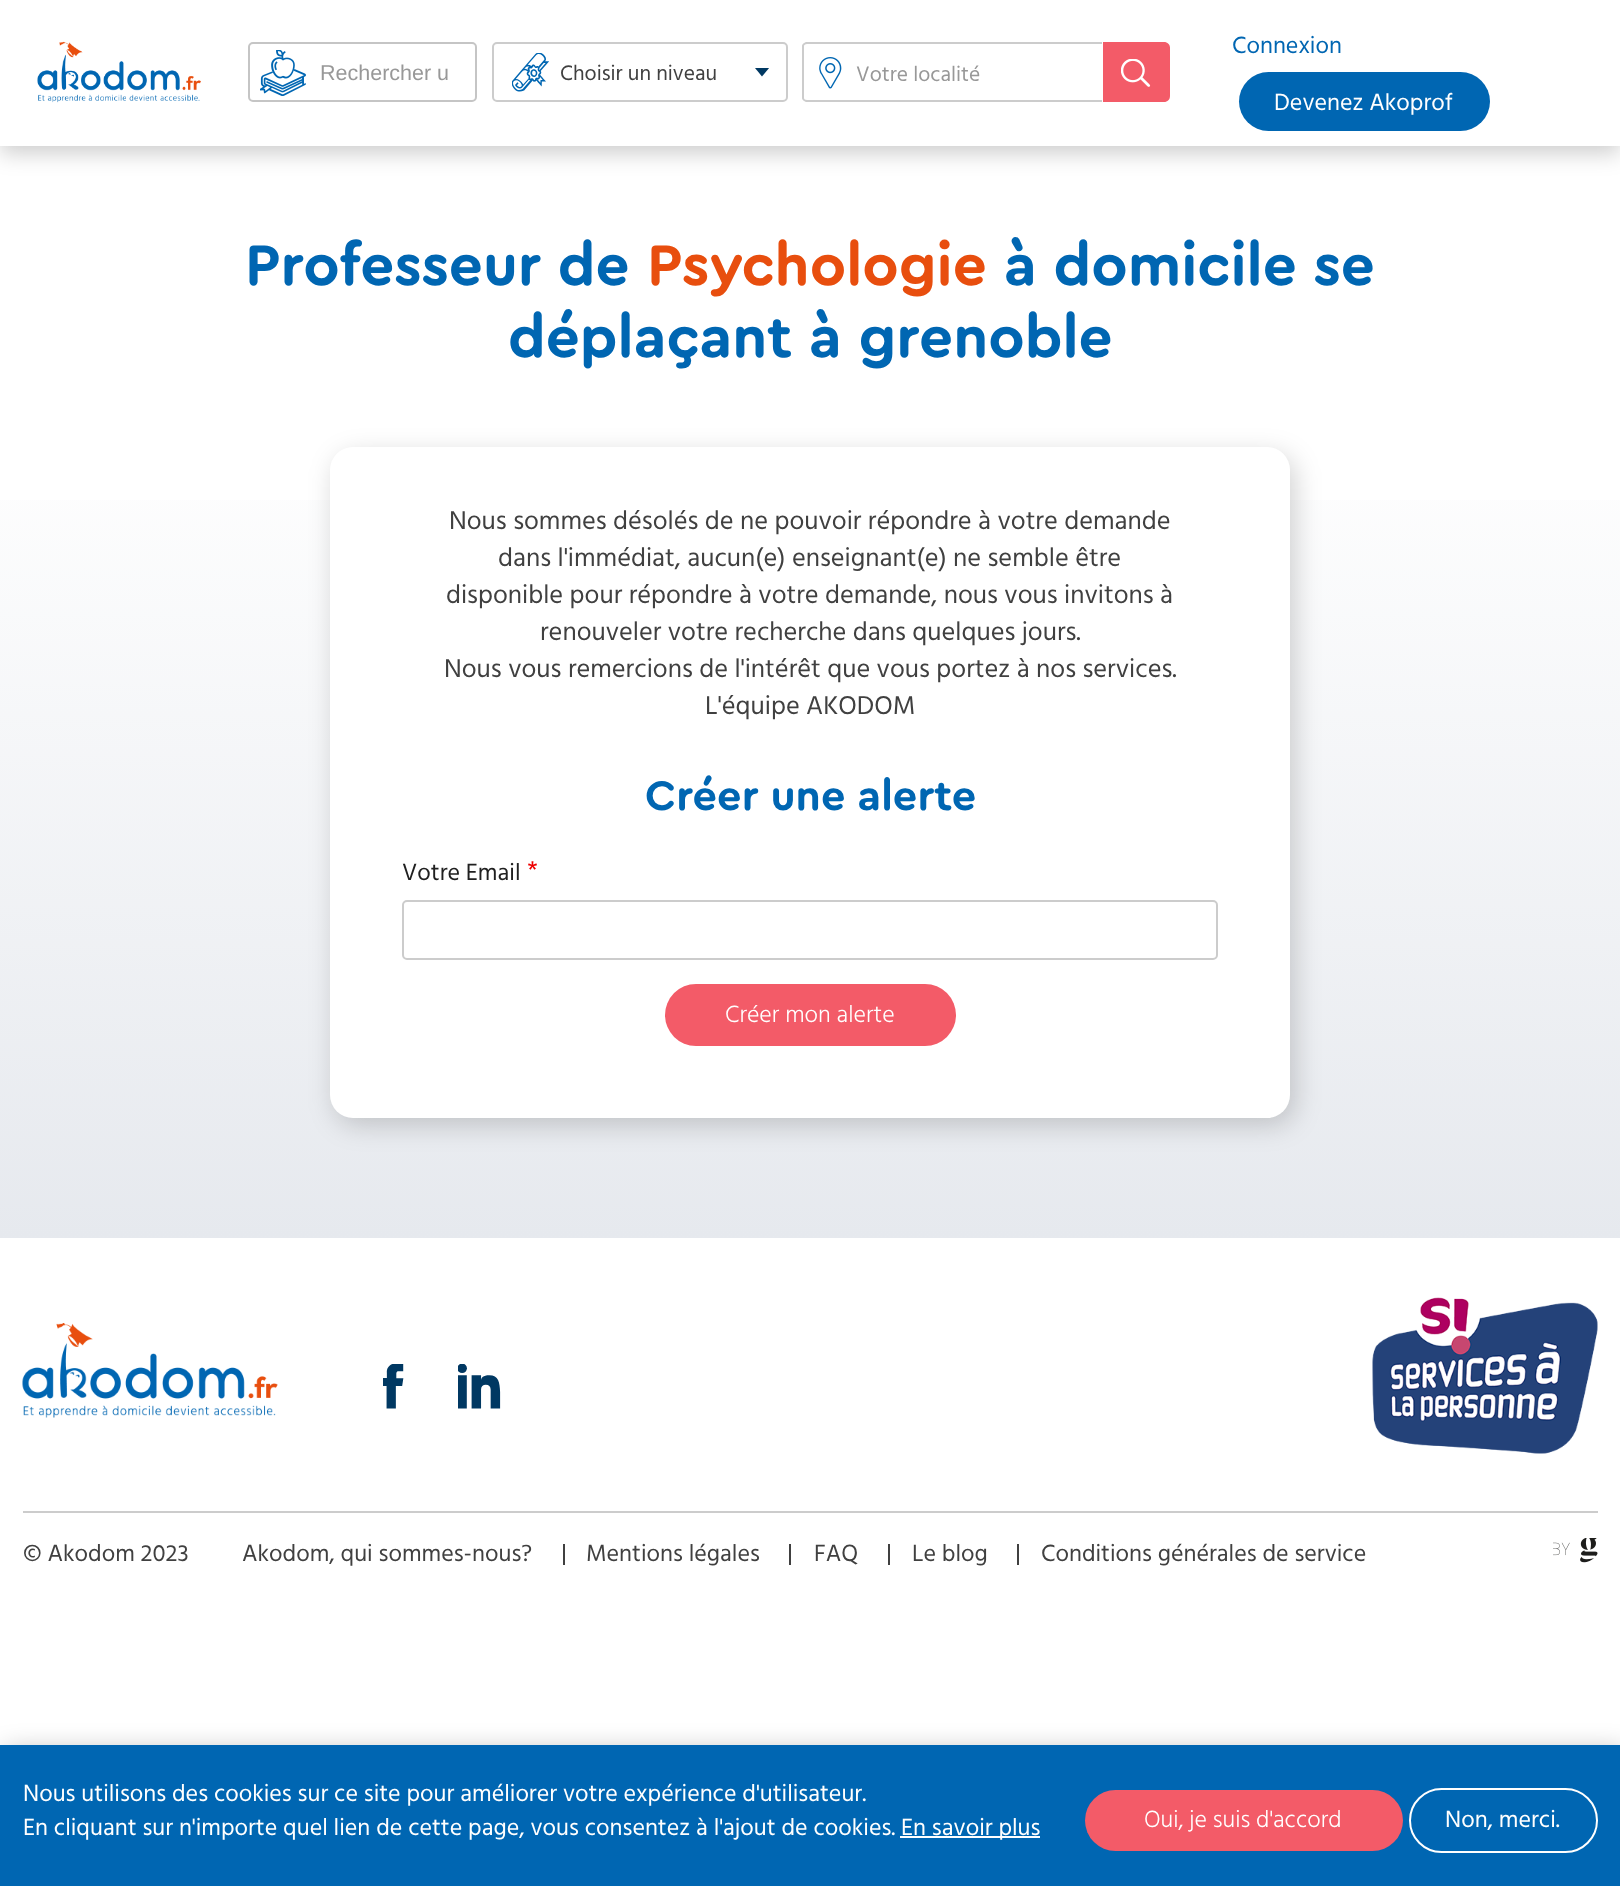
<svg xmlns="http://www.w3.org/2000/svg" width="1620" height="1886">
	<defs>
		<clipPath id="clip1"><rect x="755" y="68" width="15" height="9" /></clipPath>
		<linearGradient id="g1" gradientUnits="userSpaceOnUse" x1="810" y1="145" x2="810" y2="1238"><stop offset="0.25" stop-color="#FFFFFF" /><stop offset="1" stop-color="#E6E9EE" /></linearGradient>
	</defs>
	<rect width="100%" height="100%" fill="#FFFFFF" />
	<rect x="0" y="8" width="1620" height="145" fill="#000000" fill-opacity="0.2" filter="blur(11px)" />
	<rect x="0" y="0" width="1620" height="146" fill="#FFFFFF" />
	<image x="37" y="41" width="164" height="62" href="assets/img1.png" />
	<image x="260" y="50" width="46" height="46" href="assets/img2.png" />
	<rect x="249" y="43" width="227" height="58" rx="4" fill="none" stroke="#C5C5C5" stroke-width="2" />
	<text x="320" y="80" font-family="Liberation Sans" font-size="21.5" fill="#989898">Rechercher u</text>
	<rect x="493" y="43" width="294" height="58" rx="4" fill="none" stroke="#CCCCCC" stroke-width="2" />
	<g clip-path="url(#clip1)">
		<path d="M754.5 67.5H769.5L762 76.5Z" fill="#003862" fill-rule="evenodd" />
	</g>
	<image x="512" y="53" width="37" height="39" href="assets/img3.png" />
	<text x="560" y="80" font-family="Hind Vadodara" font-size="21.5" fill="#404040">Choisir un niveau</text>
	<image x="819" y="57" width="23" height="32" href="assets/img4.png" />
	<path d="M807 42H1102V102H807C805 102 802 100 802 98V46C802 44 805 42 807 42ZM807 44H1102V100H807C805 100 804 99 804 98V46C804 45 805 44 807 44Z" fill="#CCCCCC" fill-rule="evenodd" />
	<text x="856" y="81" font-family="Hind Vadodara" font-size="21.5" fill="#989898">Votre localité</text>
	<path d="M1103 42H1164C1167.5 42 1170 44.5 1170 48V96C1170 99.5 1167.5 102 1164 102H1103Z" fill="#F35B68" />
	<image x="1121" y="59" width="30" height="28" href="assets/img5.png" />
	<text x="1232" y="53" font-family="Hind Vadodara" font-size="24" fill="#0066B2">Connexion</text>
	<rect x="1239" y="72" width="251" height="59" rx="29.5" fill="#0066B2" />
	<text x="1274" y="110" font-family="Hind Vadodara" font-size="24" fill="#FFFFFF">Devenez Akoprof</text>
	<rect x="0" y="500" width="1620" height="738" fill="url(#g1)" />
	<text x="245" y="285" font-family="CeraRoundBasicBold" font-size="60" font-weight="700" fill="#0066B2">Professeur de</text>
	<text x="647" y="285" font-family="CeraRoundBasicBold" font-size="60" font-weight="700" fill="#E84E0E">Psychologie</text>
	<g font-family="CeraRoundBasicBold" font-size="60" font-weight="700" fill="#0066B2">
		<text x="1004" y="285">à domicile se</text>
		<text x="508" y="357">déplaçant à grenoble</text>
	</g>
	<rect x="335" y="455" width="960" height="670" rx="23" fill="#000000" fill-opacity="0.18" filter="blur(13.5px)" />
	<rect x="330" y="447" width="960" height="671" rx="23" fill="#FFFFFF" />
	<g font-family="Hind Vadodara" font-size="26.4" fill="#404040">
		<text x="449" y="529">Nous sommes désolés de ne pouvoir répondre à votre demande</text>
		<text x="498" y="566">dans l'immédiat, aucun(e) enseignant(e) ne semble être</text>
		<text x="446" y="603">disponible pour répondre à votre demande, nous vous invitons à</text>
		<text x="540" y="640">renouveler votre recherche dans quelques jours.</text>
		<text x="444" y="677">Nous vous remercions de l'intérêt que vous portez à nos services.</text>
		<text x="705" y="714">L'équipe AKODOM</text>
	</g>
	<text x="645" y="810" font-family="CeraRoundBasicBold" font-size="43.25" font-weight="700" fill="#0066B2">Créer une alerte</text>
	<text x="402" y="880" font-family="Hind Vadodara" font-size="24" fill="#202020">Votre Email</text>
	<image x="528" y="861" width="9" height="9" href="assets/img6.png" />
	<rect x="403" y="901" width="814" height="58" rx="4" fill="none" stroke="#CCCCCC" stroke-width="2" />
	<rect x="665" y="984" width="291" height="62" rx="31" fill="#F35B68" />
	<text x="725" y="1022" font-family="Hind Vadodara" font-size="24" font-weight="300" fill="#FFFFFF">Créer mon alerte</text>
	<image x="22" y="1323" width="256" height="95" href="assets/img7.png" />
	<image x="383" y="1364" width="21" height="45" href="assets/img8.png" />
	<image x="458" y="1364" width="43" height="45" href="assets/img9.png" />
	<image x="1372" y="1297" width="226" height="157" href="assets/img10.png" />
	<rect x="23" y="1511" width="1575" height="2" fill="#CCCCCC" />
	<g font-family="Hind Vadodara" font-size="24" fill="#404040">
		<text x="23" y="1561">© Akodom 2023</text>
		<text x="242" y="1561">Akodom, qui sommes-nous?</text>
	</g>
	<rect x="563" y="1544" width="2" height="21" fill="#404040" />
	<text x="586" y="1561" font-family="Hind Vadodara" font-size="24" fill="#404040">Mentions légales</text>
	<rect x="789" y="1544" width="2" height="21" fill="#404040" />
	<text x="814" y="1561" font-family="Hind Vadodara" font-size="24" fill="#404040">FAQ</text>
	<rect x="888" y="1544" width="2" height="21" fill="#404040" />
	<text x="912" y="1561" font-family="Hind Vadodara" font-size="24" fill="#404040">Le blog</text>
	<rect x="1017" y="1544" width="2" height="21" fill="#404040" />
	<text x="1041" y="1561" font-family="Hind Vadodara" font-size="24" fill="#404040">Conditions générales de service</text>
	<image x="1553" y="1538" width="45" height="25" href="assets/img11.png" />
	<rect x="5" y="1752" width="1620" height="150" fill="#000000" fill-opacity="0.3" filter="blur(13.5px)" />
	<rect x="0" y="1745" width="1620" height="141" fill="#0066B2" />
	<g font-family="Hind Vadodara" font-size="24" fill="#FFFFFF">
		<text x="23" y="1801">Nous utilisons des cookies sur ce site pour améliorer votre expérience d'utilisateur.</text>
		<text x="23" y="1835">En cliquant sur n'importe quel lien de cette page, vous consentez à l'ajout de cookies.</text>
	</g>
	<rect x="900" y="1836" width="140" height="2" fill="#FFFFFF" />
	<text x="901" y="1835" font-family="Hind Vadodara" font-size="24" fill="#FFFFFF">En savoir plus</text>
	<rect x="1085" y="1790" width="318" height="61" rx="30.5" fill="#F35B68" />
	<text x="1144" y="1827" font-family="Hind Vadodara" font-size="24" font-weight="300" fill="#FFFFFF">Oui, je suis d'accord</text>
	<rect x="1410" y="1789" width="187" height="63" rx="31.5" fill="none" stroke="#FFFFFF" stroke-width="2" />
	<text x="1445" y="1827" font-family="Hind Vadodara" font-size="24" fill="#FFFFFF">Non, merci.</text>
</svg>
